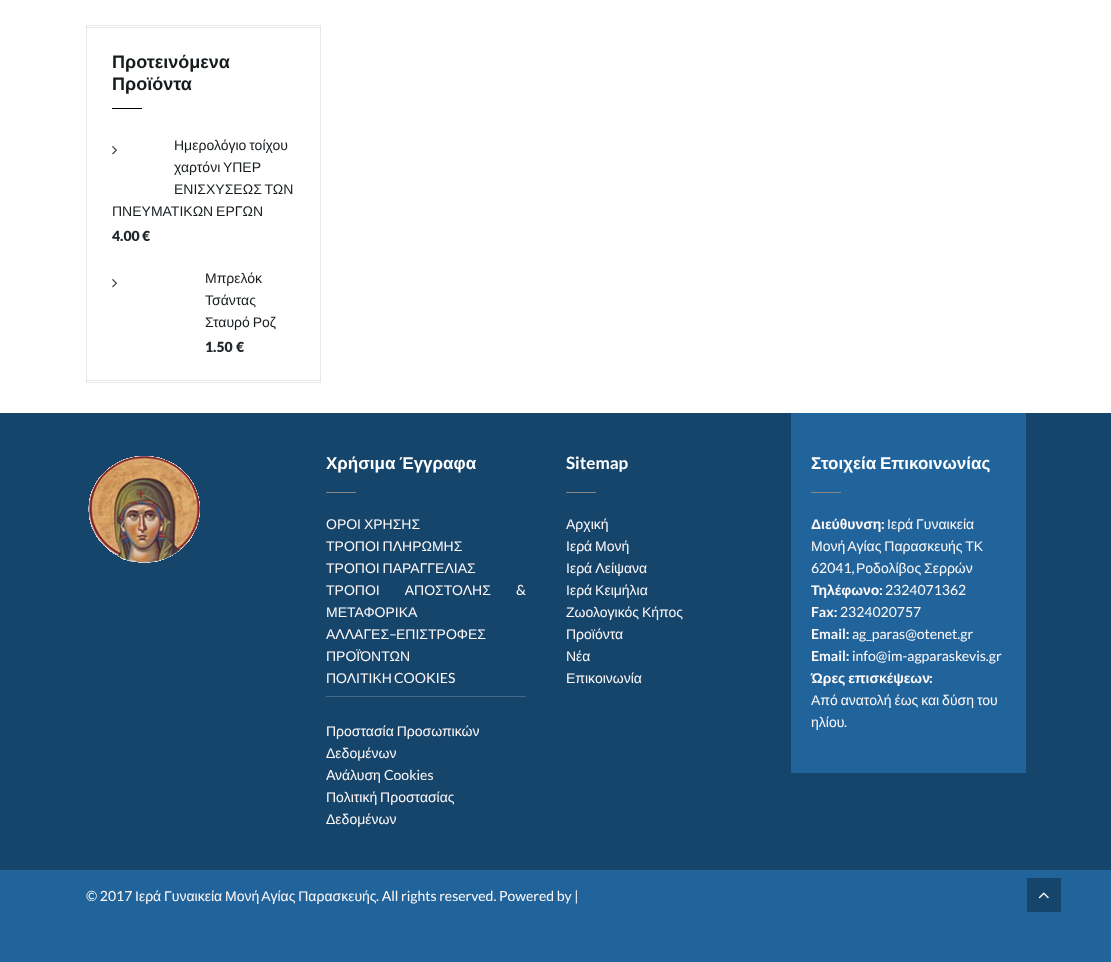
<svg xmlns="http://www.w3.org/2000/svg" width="1111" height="962">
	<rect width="100%" height="100%" fill="#FFFFFF" />
	<rect x="320" y="25" width="1" height="358" fill="#E8E8E8" />
	<rect x="86" y="25" width="1" height="358" fill="#E8E8E8" />
	<rect x="87" y="25" width="233" height="1" fill="#E8E8E8" />
	<rect x="87" y="27" width="233" height="1" fill="#E8E8E8" />
	<g font-family="Liberation Sans" font-size="18" font-weight="700" fill="#161B1E">
		<text x="112" y="68">Προτεινόμενα</text>
		<text x="112" y="90">Προϊόντα</text>
	</g>
	<rect x="112" y="108" width="30" height="1" fill="#000000" />
	<g font-family="Liberation Sans" font-size="14" fill="#161B1E">
		<text x="174" y="150" word-spacing="-1">Ημερολόγιο τοίχου</text>
		<text x="174" y="172" word-spacing="-1">χαρτόνι ΥΠΕΡ</text>
		<text x="174" y="194" word-spacing="-1">ΕΝΙΣΧΥΣΕΩΣ ΤΩΝ</text>
		<text x="112" y="216" word-spacing="-1">ΠΝΕΥΜΑΤΙΚΩΝ ΕΡΓΩΝ</text>
	</g>
	<image x="112" y="146" width="5" height="9" href="assets/img1.png" />
	<g font-family="Lato" font-size="14" font-weight="900" fill="#22272A">
		<text x="112" y="241">4.00</text>
		<text x="142" y="241">€</text>
	</g>
	<image x="112" y="279" width="5" height="9" href="assets/img1.png" />
	<g font-family="Liberation Sans" font-size="14" fill="#161B1E">
		<text x="205" y="283">Μπρελόκ</text>
		<text x="205" y="305">Τσάντας</text>
		<text x="205" y="327" word-spacing="-1">Σταυρό Ροζ</text>
	</g>
	<g font-family="Lato" font-size="14" font-weight="900" fill="#22272A">
		<text x="205" y="352">1.50</text>
		<text x="236" y="352">€</text>
	</g>
	<rect x="87" y="380" width="233" height="1" fill="#E8E8E8" />
	<rect x="87" y="382" width="233" height="1" fill="#E8E8E8" />
	<rect x="0" y="413" width="1111" height="457" fill="#16456C" />
	<image x="88" y="456" width="112" height="107" href="assets/img2.png" />
	<text x="326" y="469" word-spacing="-1" font-family="Liberation Sans" font-size="17" font-weight="700" fill="#FFFFFF">Χρήσιμα Έγγραφα</text>
	<rect x="326" y="492" width="30" height="1" fill="#878787" />
	<g font-family="Liberation Sans" font-size="14" fill="#FFF9F9">
		<text x="326" y="529" word-spacing="-1">ΟΡΟΙ ΧΡΗΣΗΣ</text>
		<text x="326" y="551" word-spacing="-1">ΤΡΟΠΟΙ ΠΛΗΡΩΜΗΣ</text>
		<text x="326" y="573" word-spacing="-1">ΤΡΟΠΟΙ ΠΑΡΑΓΓΕΛΙΑΣ</text>
		<text x="326" y="595" word-spacing="22">ΤΡΟΠΟΙ ΑΠΟΣΤΟΛΗΣ</text>
	</g>
	<text x="516" y="595" font-family="Lato" font-size="14" fill="#FFF9F9">&amp;</text>
	<g font-family="Liberation Sans" font-size="14" fill="#FFF9F9">
		<text x="326" y="617">ΜΕΤΑΦΟΡΙΚΑ</text>
		<text x="326" y="639">ΑΛΛΑΓΕΣ</text>
	</g>
	<text x="389" y="639" font-family="Lato" font-size="14" fill="#FFF9F9">–</text>
	<g font-family="Liberation Sans" font-size="14" fill="#FFF9F9">
		<text x="396" y="639">ΕΠΙΣΤΡΟΦΕΣ</text>
		<text x="326" y="661">ΠΡΟΪΌΝΤΩΝ</text>
		<text x="326" y="683">ΠΟΛΙΤΙΚΗ</text>
	</g>
	<text x="394" y="683" font-family="Lato" font-size="14" fill="#FFF9F9">COOKIES</text>
	<rect x="326" y="696" width="200" height="1" fill="#456A89" />
	<g font-family="Liberation Sans" font-size="14" fill="#FFF9F9">
		<text x="326" y="736" word-spacing="-1">Προστασία Προσωπικών</text>
		<text x="326" y="758">Δεδομένων</text>
	</g>
	<text x="326" y="780" font-family="Lato" font-size="14" fill="#FFF9F9">A</text>
	<text x="335" y="780" font-family="Liberation Sans" font-size="14" fill="#FFF9F9">νάλυση</text>
	<text x="384" y="780" font-family="Lato" font-size="14" fill="#FFF9F9">Cookies</text>
	<g font-family="Liberation Sans" font-size="14" fill="#FFF9F9">
		<text x="326" y="802" word-spacing="-1">Πολιτική Προστασίας</text>
		<text x="326" y="824">Δεδομένων</text>
	</g>
	<text x="566" y="469" font-family="Lato" font-size="17" font-weight="700" fill="#FFFFFF">Sitemap</text>
	<rect x="566" y="492" width="30" height="1" fill="#878787" />
	<g font-family="Liberation Sans" font-size="14" fill="#FFF9F9">
		<text x="566" y="529">Αρχική</text>
		<text x="566" y="551" word-spacing="-1">Ιερά Μονή</text>
		<text x="566" y="573">Ιερά Λείψανα</text>
		<text x="566" y="595" word-spacing="-1">Ιερά Κειμήλια</text>
		<text x="566" y="617" word-spacing="-1">Ζωολογικός Κήπος</text>
		<text x="566" y="639">Προϊόντα</text>
		<text x="566" y="661">Νέα</text>
		<text x="566" y="683">Επικοινωνία</text>
	</g>
	<rect x="791" y="413" width="235" height="360" fill="#21649B" />
	<text x="811" y="469" word-spacing="-1" font-family="Liberation Sans" font-size="17" font-weight="700" fill="#FFFFFF">Στοιχεία Επικοινωνίας</text>
	<rect x="811" y="492" width="30" height="1" fill="#878787" />
	<text x="811" y="529" font-family="Liberation Sans" font-size="14" font-weight="700" fill="#FFF9F9">Διεύθυνση</text>
	<text x="881" y="529" font-family="Lato" font-size="14" font-weight="700" fill="#FFF9F9">:</text>
	<g font-family="Liberation Sans" font-size="14" fill="#FFF9F9">
		<text x="887" y="529" word-spacing="-1">Ιερά Γυναικεία</text>
		<text x="811" y="551" word-spacing="-1">Μονή Αγίας Παρασκευής ΤΚ</text>
	</g>
	<text x="811" y="573" font-family="Lato" font-size="14" fill="#FFF9F9">62041,</text>
	<text x="856" y="573" word-spacing="-1" font-family="Liberation Sans" font-size="14" fill="#FFF9F9">Ροδολίβος Σερρών</text>
	<text x="811" y="595" font-family="Liberation Sans" font-size="14" font-weight="700" fill="#FFF9F9">Τηλέφωνο</text>
	<text x="879" y="595" font-family="Lato" font-size="14" font-weight="700" fill="#FFF9F9">:</text>
	<text x="885" y="595" font-family="Lato" font-size="14" fill="#FFF9F9">2324071362</text>
	<text x="811" y="617" font-family="Lato" font-size="14" font-weight="700" fill="#FFF9F9">Fax:</text>
	<text x="840" y="617" font-family="Lato" font-size="14" fill="#FFF9F9">2324020757</text>
	<text x="811" y="639" font-family="Lato" font-size="14" font-weight="700" fill="#FFF9F9">Email:</text>
	<text x="852" y="639" font-family="Lato" font-size="14" fill="#FFF9F9">ag_paras@otenet.gr</text>
	<text x="811" y="661" font-family="Lato" font-size="14" font-weight="700" fill="#FFF9F9">Email:</text>
	<text x="852" y="661" font-family="Lato" font-size="14" fill="#FFF9F9">info@im-agparaskevis.gr</text>
	<text x="811" y="683" word-spacing="-1" font-family="Liberation Sans" font-size="14" font-weight="700" fill="#FFF9F9">Ώρες επισκέψεων</text>
	<text x="929" y="683" font-family="Lato" font-size="14" font-weight="700" fill="#FFF9F9">:</text>
	<g font-family="Liberation Sans" font-size="14" fill="#FFF9F9">
		<text x="811" y="705" word-spacing="-1">Από ανατολή έως και δύση του</text>
		<text x="811" y="727">ηλίου</text>
	</g>
	<text x="844" y="727" font-family="Lato" font-size="14" fill="#FFF9F9">.</text>
	<rect x="0" y="870" width="1111" height="92" fill="#21649B" />
	<text x="86" y="901" font-family="Lato" font-size="14" fill="#FFF9F9">© 2017</text>
	<text x="135" y="901" word-spacing="-1" font-family="Liberation Sans" font-size="14" fill="#FFF9F9">Ιερά Γυναικεία Μονή Αγίας Παρασκευής</text>
	<text x="376" y="901" font-family="Lato" font-size="14" fill="#FFF9F9">. All rights reserved. Powered by |</text>
	<rect x="1027" y="878" width="34" height="34" fill="#16456C" />
	<image x="1038" y="892" width="11" height="7" href="assets/img3.png" />
</svg>
